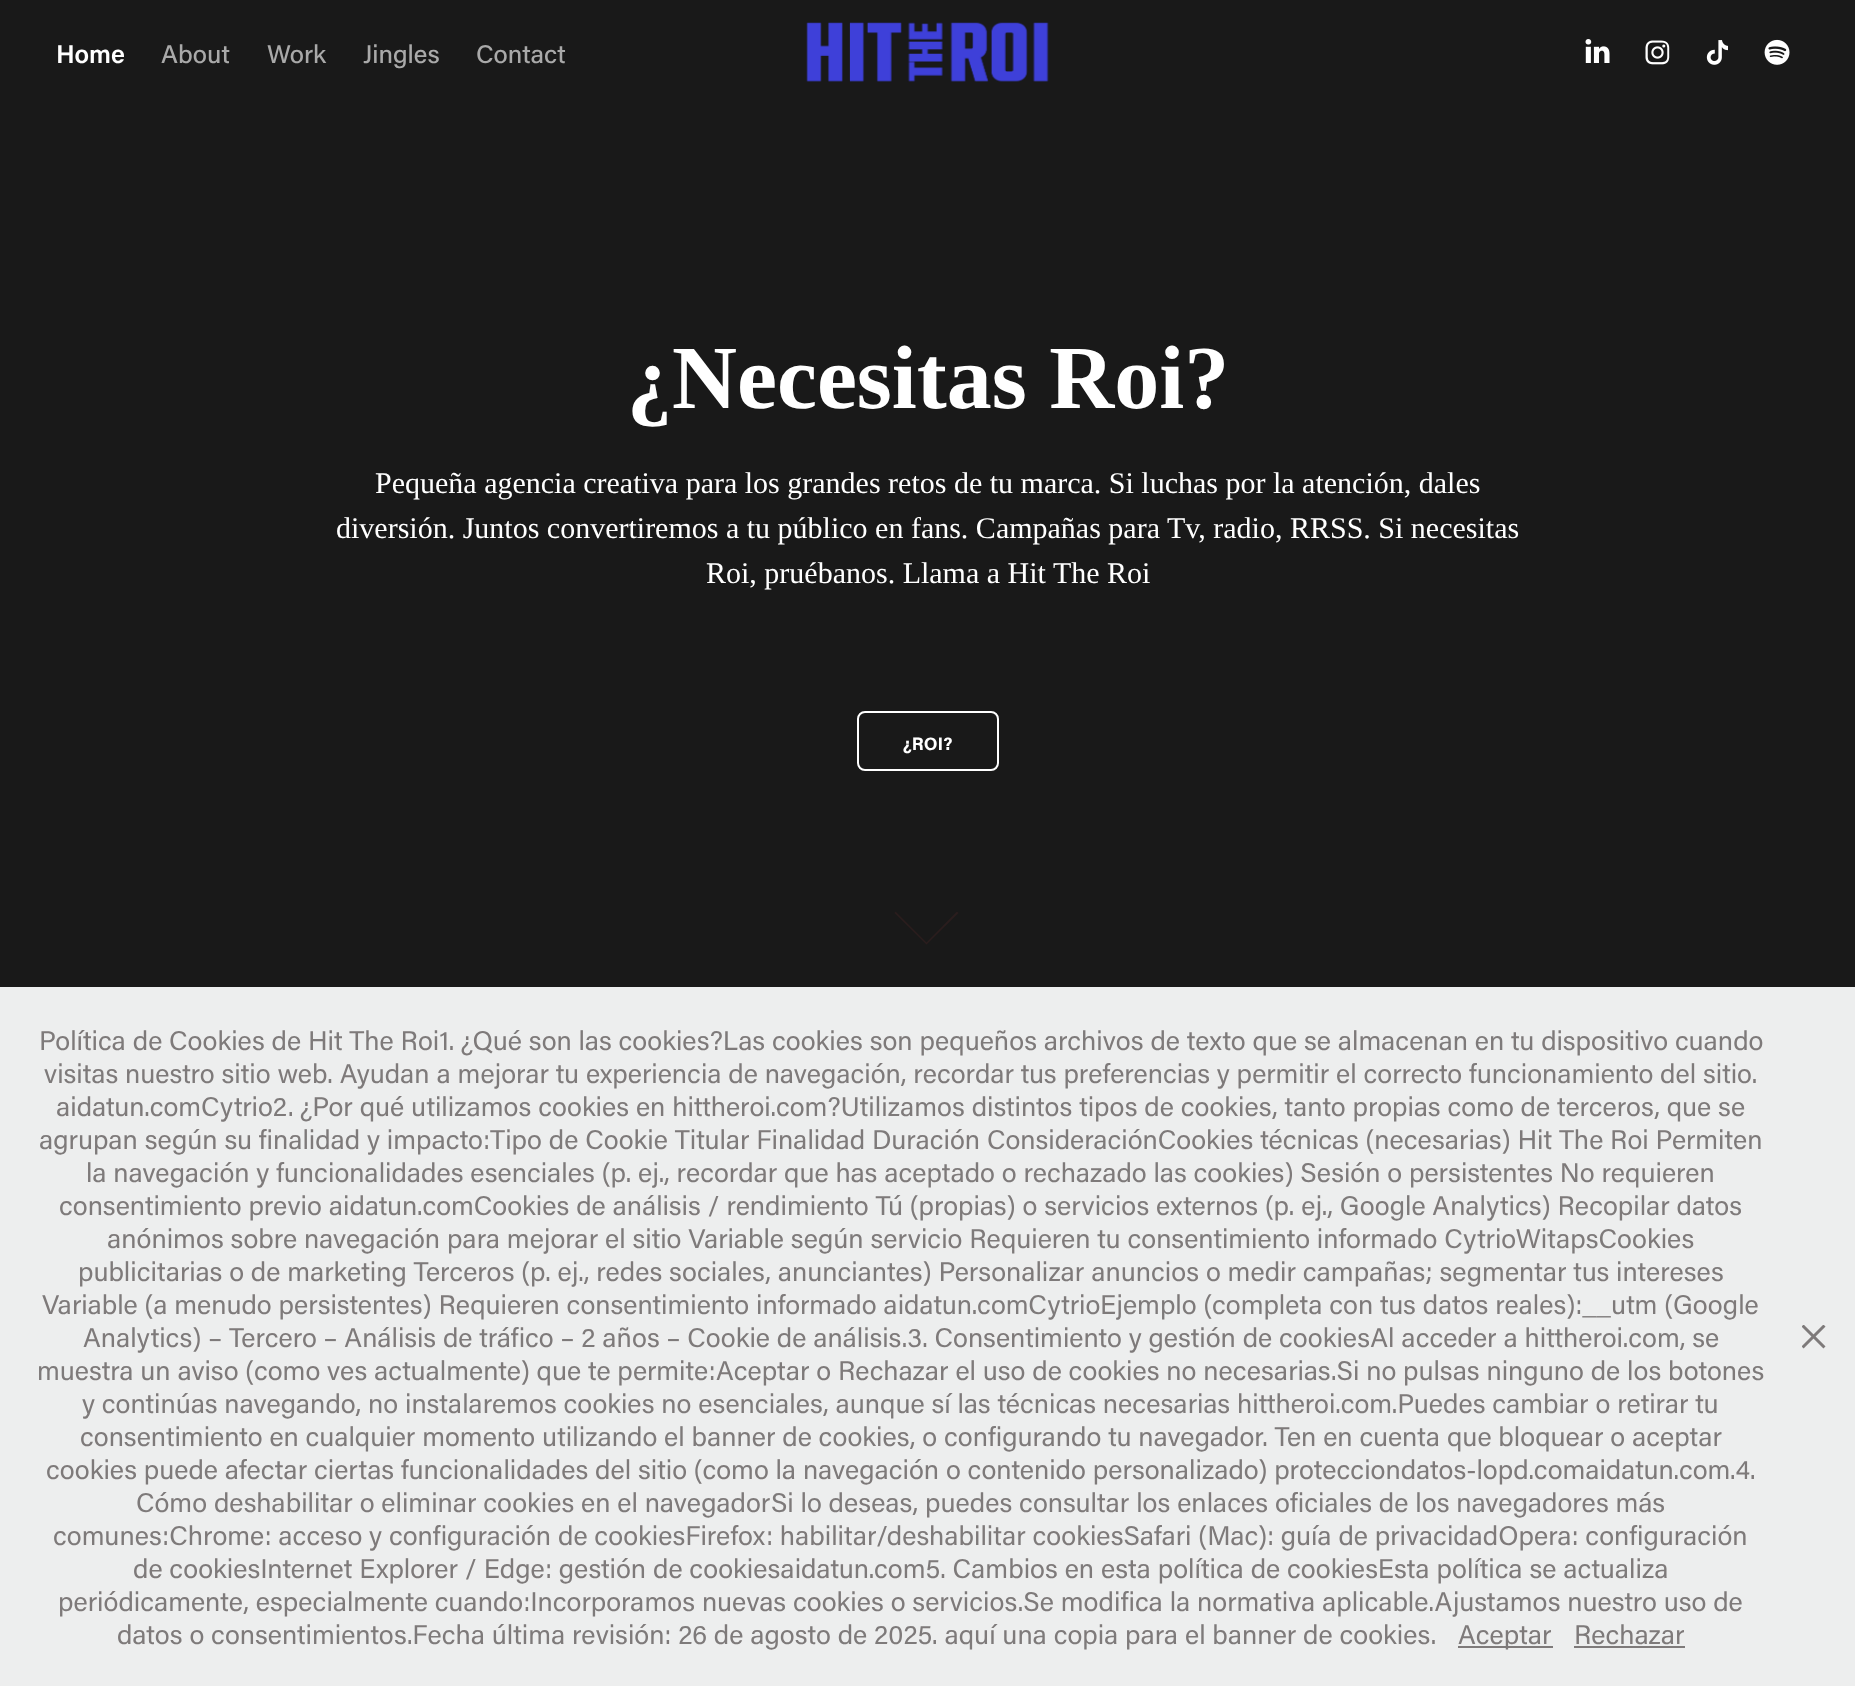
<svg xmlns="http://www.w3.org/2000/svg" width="1855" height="1686">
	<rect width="100%" height="100%" fill="#191919" />
	<text x="56" y="63" font-family="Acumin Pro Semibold" font-size="25.5" font-weight="600" fill="#FFFFFF">Home</text>
	<g font-family="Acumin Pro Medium" font-size="25.5" font-weight="500" fill="#A9A9A9">
		<text x="161" y="63">About</text>
		<text x="267" y="63">Work</text>
		<text x="363" y="63">Jingles</text>
		<text x="476" y="63">Contact</text>
	</g>
	<image x="806" y="22" width="243" height="60" href="assets/img1.png" />
	<image x="1585" y="39" width="25" height="24" href="assets/img2.png" />
	<image x="1645" y="40" width="25" height="25" href="assets/img3.png" />
	<image x="1706" y="40" width="22" height="25" href="assets/img4.png" />
	<image x="1764" y="39" width="26" height="26" href="assets/img5.png" />
	<text x="627" y="408" font-family="Liberation Serif" font-size="90" font-weight="700" fill="#FFFFFF">¿Necesitas Roi?</text>
	<g font-family="Liberation Serif" font-size="30" fill="#FFFFFF">
		<text x="375" y="493">Pequeña agencia creativa para los grandes retos de tu marca. Si luchas por la atención, dales</text>
		<text x="336" y="538">diversión. Juntos convertiremos a tu público en fans. Campañas para Tv, radio, RRSS. Si necesitas</text>
		<text x="706" y="583">Roi, pruébanos. Llama a Hit The Roi</text>
	</g>
	<rect x="858" y="712" width="140" height="58" rx="7" fill="none" stroke="#FFFFFF" stroke-width="2" />
	<text x="903" y="750" font-family="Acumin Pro" font-size="18" font-weight="700" fill="#FFFFFF">¿ROI?</text>
	<path d="M957 911.5L958.5 913L926.5 944.5L925.5 943.5Z" fill="#2A1D1D" />
	<path d="M895.5 911.5L927.5 943.5L926.5 944.5L894.5 913Z" fill="#2A1D1D" />
	<rect x="0" y="987" width="1855" height="699" fill="#EDEEEE" />
	<g font-family="Acumin Pro" font-size="27" fill="#7E7A7A">
		<text x="39" y="1050">Política de Cookies de Hit The Roi1. ¿Qué son las cookies?Las cookies son pequeños archivos de texto que se almacenan en tu dispositivo cuando</text>
		<text x="44" y="1083">visitas nuestro sitio web. Ayudan a mejorar tu experiencia de navegación, recordar tus preferencias y permitir el correcto funcionamiento del sitio.</text>
		<text x="56" y="1116">aidatun.comCytrio2. ¿Por qué utilizamos cookies en hittheroi.com?Utilizamos distintos tipos de cookies, tanto propias como de terceros, que se</text>
		<text x="39" y="1149">agrupan según su finalidad y impacto:Tipo de Cookie Titular Finalidad Duración ConsideraciónCookies técnicas (necesarias) Hit The Roi Permiten</text>
		<text x="86" y="1182">la navegación y funcionalidades esenciales (p. ej., recordar que has aceptado o rechazado las cookies) Sesión o persistentes No requieren</text>
		<text x="59" y="1215">consentimiento previo aidatun.comCookies de análisis / rendimiento Tú (propias) o servicios externos (p. ej., Google Analytics) Recopilar datos</text>
		<text x="107" y="1248">anónimos sobre navegación para mejorar el sitio Variable según servicio Requieren tu consentimiento informado CytrioWitapsCookies</text>
		<text x="78" y="1281">publicitarias o de marketing Terceros (p. ej., redes sociales, anunciantes) Personalizar anuncios o medir campañas; segmentar tus intereses</text>
		<text x="42" y="1314">Variable (a menudo persistentes) Requieren consentimiento informado aidatun.comCytrioEjemplo (completa con tus datos reales):__utm (Google</text>
		<text x="83" y="1347">Analytics) – Tercero – Análisis de tráfico – 2 años – Cookie de análisis.3. Consentimiento y gestión de cookiesAl acceder a hittheroi.com, se</text>
		<text x="37" y="1380">muestra un aviso (como ves actualmente) que te permite:Aceptar o Rechazar el uso de cookies no necesarias.Si no pulsas ninguno de los botones</text>
		<text x="82" y="1413">y continúas navegando, no instalaremos cookies no esenciales, aunque sí las técnicas necesarias hittheroi.com.Puedes cambiar o retirar tu</text>
		<text x="80" y="1446">consentimiento en cualquier momento utilizando el banner de cookies, o configurando tu navegador. Ten en cuenta que bloquear o aceptar</text>
		<text x="46" y="1479">cookies puede afectar ciertas funcionalidades del sitio (como la navegación o contenido personalizado) protecciondatos-lopd.comaidatun.com.4.</text>
		<text x="136" y="1512">Cómo deshabilitar o eliminar cookies en el navegadorSi lo deseas, puedes consultar los enlaces oficiales de los navegadores más</text>
		<text x="53" y="1545">comunes:Chrome: acceso y configuración de cookiesFirefox: habilitar/deshabilitar cookiesSafari (Mac): guía de privacidadOpera: configuración</text>
		<text x="133" y="1578">de cookiesInternet Explorer / Edge: gestión de cookiesaidatun.com5. Cambios en esta política de cookiesEsta política se actualiza</text>
		<text x="58" y="1611">periódicamente, especialmente cuando:Incorporamos nuevas cookies o servicios.Se modifica la normativa aplicable.Ajustamos nuestro uso de</text>
		<text x="117" y="1644">datos o consentimientos.Fecha última revisión: 26 de agosto de 2025. aquí una copia para el banner de cookies.</text>
	</g>
	<rect x="1458" y="1646" width="95" height="2" fill="#7E7A7A" />
	<g font-family="Acumin Pro" font-size="27" fill="#7E7A7A">
		<text x="1458" y="1644">Aceptar</text>
		<text x="1574" y="1644">Rechazar</text>
	</g>
	<rect x="1574" y="1646" width="111" height="2" fill="#7E7A7A" />
	<image x="1802" y="1325" width="24" height="24" href="assets/img6.png" />
</svg>
